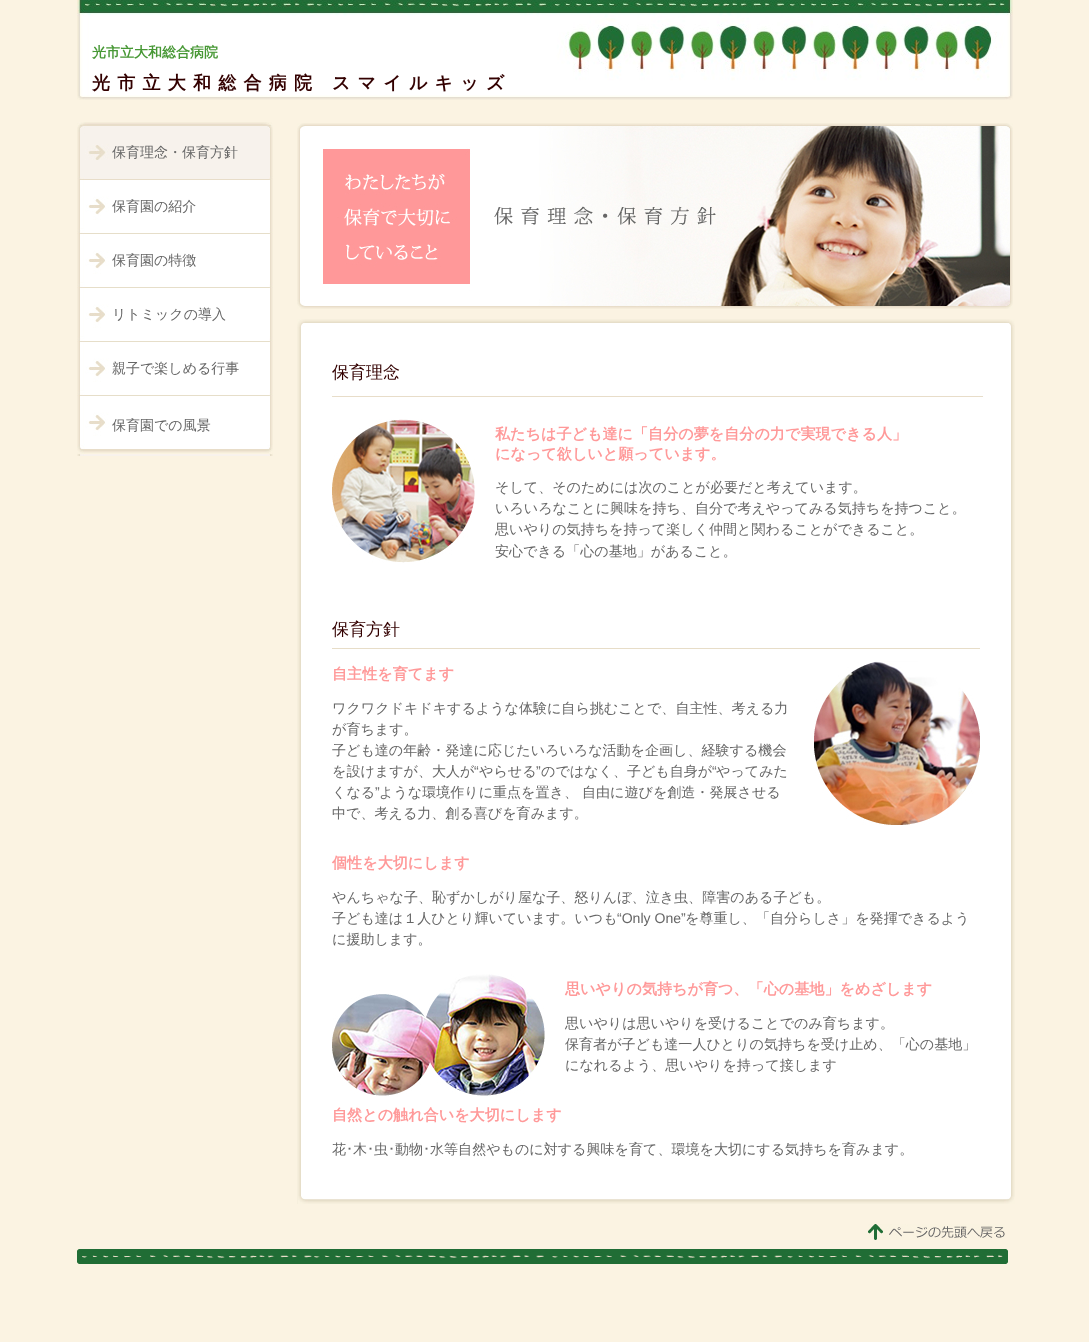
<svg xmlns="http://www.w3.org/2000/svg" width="1089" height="1342">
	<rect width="100%" height="100%" fill="#FBF3E2" />
	<image x="77" y="0" width="936" height="100" href="assets/img1.png" />
	<text x="92" y="57" font-family="WenQuanYi Zen Hei" font-size="14" font-weight="700" fill="#479835">光市立大和総合病院</text>
	<text x="92" y="89" font-family="WenQuanYi Zen Hei" font-size="18" font-weight="700" letter-spacing="7.25" fill="#330000">光市立大和総合病院 スマイルキッズ</text>
	<image x="77" y="122" width="196" height="58" href="assets/img2.png" />
	<text x="112" y="157" font-family="WenQuanYi Zen Hei" font-size="14" font-weight="500" fill="#666666">保育理念・保育方針</text>
	<image x="77" y="180" width="196" height="54" href="assets/img3.png" />
	<text x="112" y="211" font-family="WenQuanYi Zen Hei" font-size="14" font-weight="500" fill="#666666">保育園の紹介</text>
	<image x="77" y="234" width="196" height="54" href="assets/img3.png" />
	<text x="112" y="265" font-family="WenQuanYi Zen Hei" font-size="14" font-weight="500" fill="#666666">保育園の特徴</text>
	<image x="77" y="288" width="196" height="54" href="assets/img3.png" />
	<text x="112" y="319" font-family="WenQuanYi Zen Hei" font-size="14" font-weight="500" fill="#666666">リトミックの導入</text>
	<image x="77" y="342" width="196" height="54" href="assets/img3.png" />
	<text x="112" y="373" font-family="WenQuanYi Zen Hei" font-size="14" font-weight="500" fill="#666666">親子で楽しめる行事</text>
	<image x="77" y="396" width="196" height="60" href="assets/img4.png" />
	<text x="112" y="430" font-family="WenQuanYi Zen Hei" font-size="14" font-weight="500" fill="#666666">保育園での風景</text>
	<image x="297" y="123" width="716" height="186" href="assets/img5.png" />
	<image x="297" y="319" width="718" height="90" href="assets/img6.png" />
	<text x="332" y="378" font-family="WenQuanYi Zen Hei" font-size="17" font-weight="500" fill="#330000">保育理念</text>
	<image x="297" y="409" width="718" height="795" href="assets/img7.png" />
	<image x="298" y="1196" width="717" height="8" href="assets/img8.png" />
	<image x="332" y="419" width="143" height="144" href="assets/img9.png" />
	<g font-family="WenQuanYi Zen Hei" font-size="15.1" font-weight="700" fill="#FF9999">
		<text x="495" y="439">私たちは子ども達に「自分の夢を自分の力で実現できる人」</text>
		<text x="495" y="459">になって欲しいと願っています。</text>
	</g>
	<g font-family="WenQuanYi Zen Hei" font-size="14.05" font-weight="500" fill="#666666">
		<text x="495" y="492">そして、そのためには次のことが必要だと考えています。</text>
		<text x="495" y="513">いろいろなことに興味を持ち、自分で考えやってみる気持ちを持つこと。</text>
		<text x="495" y="534">思いやりの気持ちを持って楽しく仲間と関わることができること。</text>
		<text x="495" y="556">安心できる「心の基地」があること。</text>
	</g>
	<rect x="332" y="648" width="648" height="1" fill="#E7DDC8" />
	<text x="332" y="635" font-family="WenQuanYi Zen Hei" font-size="17" font-weight="500" fill="#330000">保育方針</text>
	<text x="332" y="679" font-family="WenQuanYi Zen Hei" font-size="15.1" font-weight="700" fill="#FF9999">自主性を育てます</text>
	<image x="814" y="661" width="166" height="164" href="assets/img10.png" />
	<g font-family="WenQuanYi Zen Hei" font-size="14.05" font-weight="500" fill="#666666">
		<text x="332" y="713">ワクワクドキドキするような体験に自ら挑むことで、自主性、考える力</text>
		<text x="332" y="734">が育ちます。</text>
		<text x="332" y="755">子ども達の年齢・発達に応じたいろいろな活動を企画し、経験する機会</text>
		<text x="332" y="776">を設けますが、大人が</text>
	</g>
	<text x="474" y="776" font-family="Liberation Sans" font-size="14.05" fill="#666666">“</text>
	<text x="479" y="776" font-family="WenQuanYi Zen Hei" font-size="14.05" font-weight="500" fill="#666666">やらせる</text>
	<text x="536" y="776" font-family="Liberation Sans" font-size="14.05" fill="#666666">”</text>
	<text x="541" y="776" font-family="WenQuanYi Zen Hei" font-size="14.05" font-weight="500" fill="#666666">のではなく、子ども自身が</text>
	<text x="712" y="776" font-family="Liberation Sans" font-size="14.05" fill="#666666">“</text>
	<g font-family="WenQuanYi Zen Hei" font-size="14.05" font-weight="500" fill="#666666">
		<text x="716" y="776">やってみた</text>
		<text x="332" y="797">くなる</text>
	</g>
	<text x="375" y="797" font-family="Liberation Sans" font-size="14.05" fill="#666666">”</text>
	<g font-family="WenQuanYi Zen Hei" font-size="14.05" font-weight="500" fill="#666666">
		<text x="379" y="797">ような環境作りに重点を置き、</text>
		<text x="582" y="797">自由に遊びを創造・発展させる</text>
		<text x="332" y="818">中で、考える力、創る喜びを育みます。</text>
	</g>
	<text x="332" y="868" font-family="WenQuanYi Zen Hei" font-size="15.1" font-weight="700" fill="#FF9999">個性を大切にします</text>
	<g font-family="WenQuanYi Zen Hei" font-size="14.05" font-weight="500" fill="#666666">
		<text x="332" y="902">やんちゃな子、恥ずかしがり屋な子、怒りんぼ、泣き虫、障害のある子ども。</text>
		<text x="332" y="923">子ども達は１人ひとり輝いています。いつも</text>
	</g>
	<text x="617" y="923" font-family="Liberation Sans" font-size="14.05" fill="#666666">“Only One”</text>
	<g font-family="WenQuanYi Zen Hei" font-size="14.05" font-weight="500" fill="#666666">
		<text x="685" y="923">を尊重し、「自分らしさ」を発揮できるよう</text>
		<text x="332" y="944">に援助します。</text>
	</g>
	<image x="332" y="974" width="213" height="122" href="assets/img11.png" />
	<text x="565" y="994" font-family="WenQuanYi Zen Hei" font-size="15.1" font-weight="700" fill="#FF9999">思いやりの気持ちが育つ、「心の基地」をめざします</text>
	<g font-family="WenQuanYi Zen Hei" font-size="14.05" font-weight="500" fill="#666666">
		<text x="565" y="1028">思いやりは思いやりを受けることでのみ育ちます。</text>
		<text x="565" y="1049">保育者が子ども達一人ひとりの気持ちを受け止め、「心の基地」</text>
		<text x="565" y="1070">になれるよう、思いやりを持って接します</text>
	</g>
	<text x="332" y="1120" font-family="WenQuanYi Zen Hei" font-size="15.1" font-weight="700" fill="#FF9999">自然との触れ合いを大切にします</text>
	<text x="332" y="1154" font-family="WenQuanYi Zen Hei" font-size="14.05" font-weight="500" fill="#666666">花</text>
	<text x="346" y="1154" font-family="IPAPGothic" font-size="14.05" fill="#666666">･</text>
	<text x="353" y="1154" font-family="WenQuanYi Zen Hei" font-size="14.05" font-weight="500" fill="#666666">木</text>
	<text x="367" y="1154" font-family="IPAPGothic" font-size="14.05" fill="#666666">･</text>
	<text x="374" y="1154" font-family="WenQuanYi Zen Hei" font-size="14.05" font-weight="500" fill="#666666">虫</text>
	<text x="388" y="1154" font-family="IPAPGothic" font-size="14.05" fill="#666666">･</text>
	<text x="395" y="1154" font-family="WenQuanYi Zen Hei" font-size="14.05" font-weight="500" fill="#666666">動物</text>
	<text x="423" y="1154" font-family="IPAPGothic" font-size="14.05" fill="#666666">･</text>
	<text x="430" y="1154" font-family="WenQuanYi Zen Hei" font-size="14.05" font-weight="500" fill="#666666">水等自然やものに対する興味を育て、環境を大切にする気持ちを育みます。</text>
	<image x="868" y="1224" width="137" height="16" href="assets/img12.png" />
	<image x="77" y="1249" width="931" height="15" href="assets/img13.png" />
</svg>
